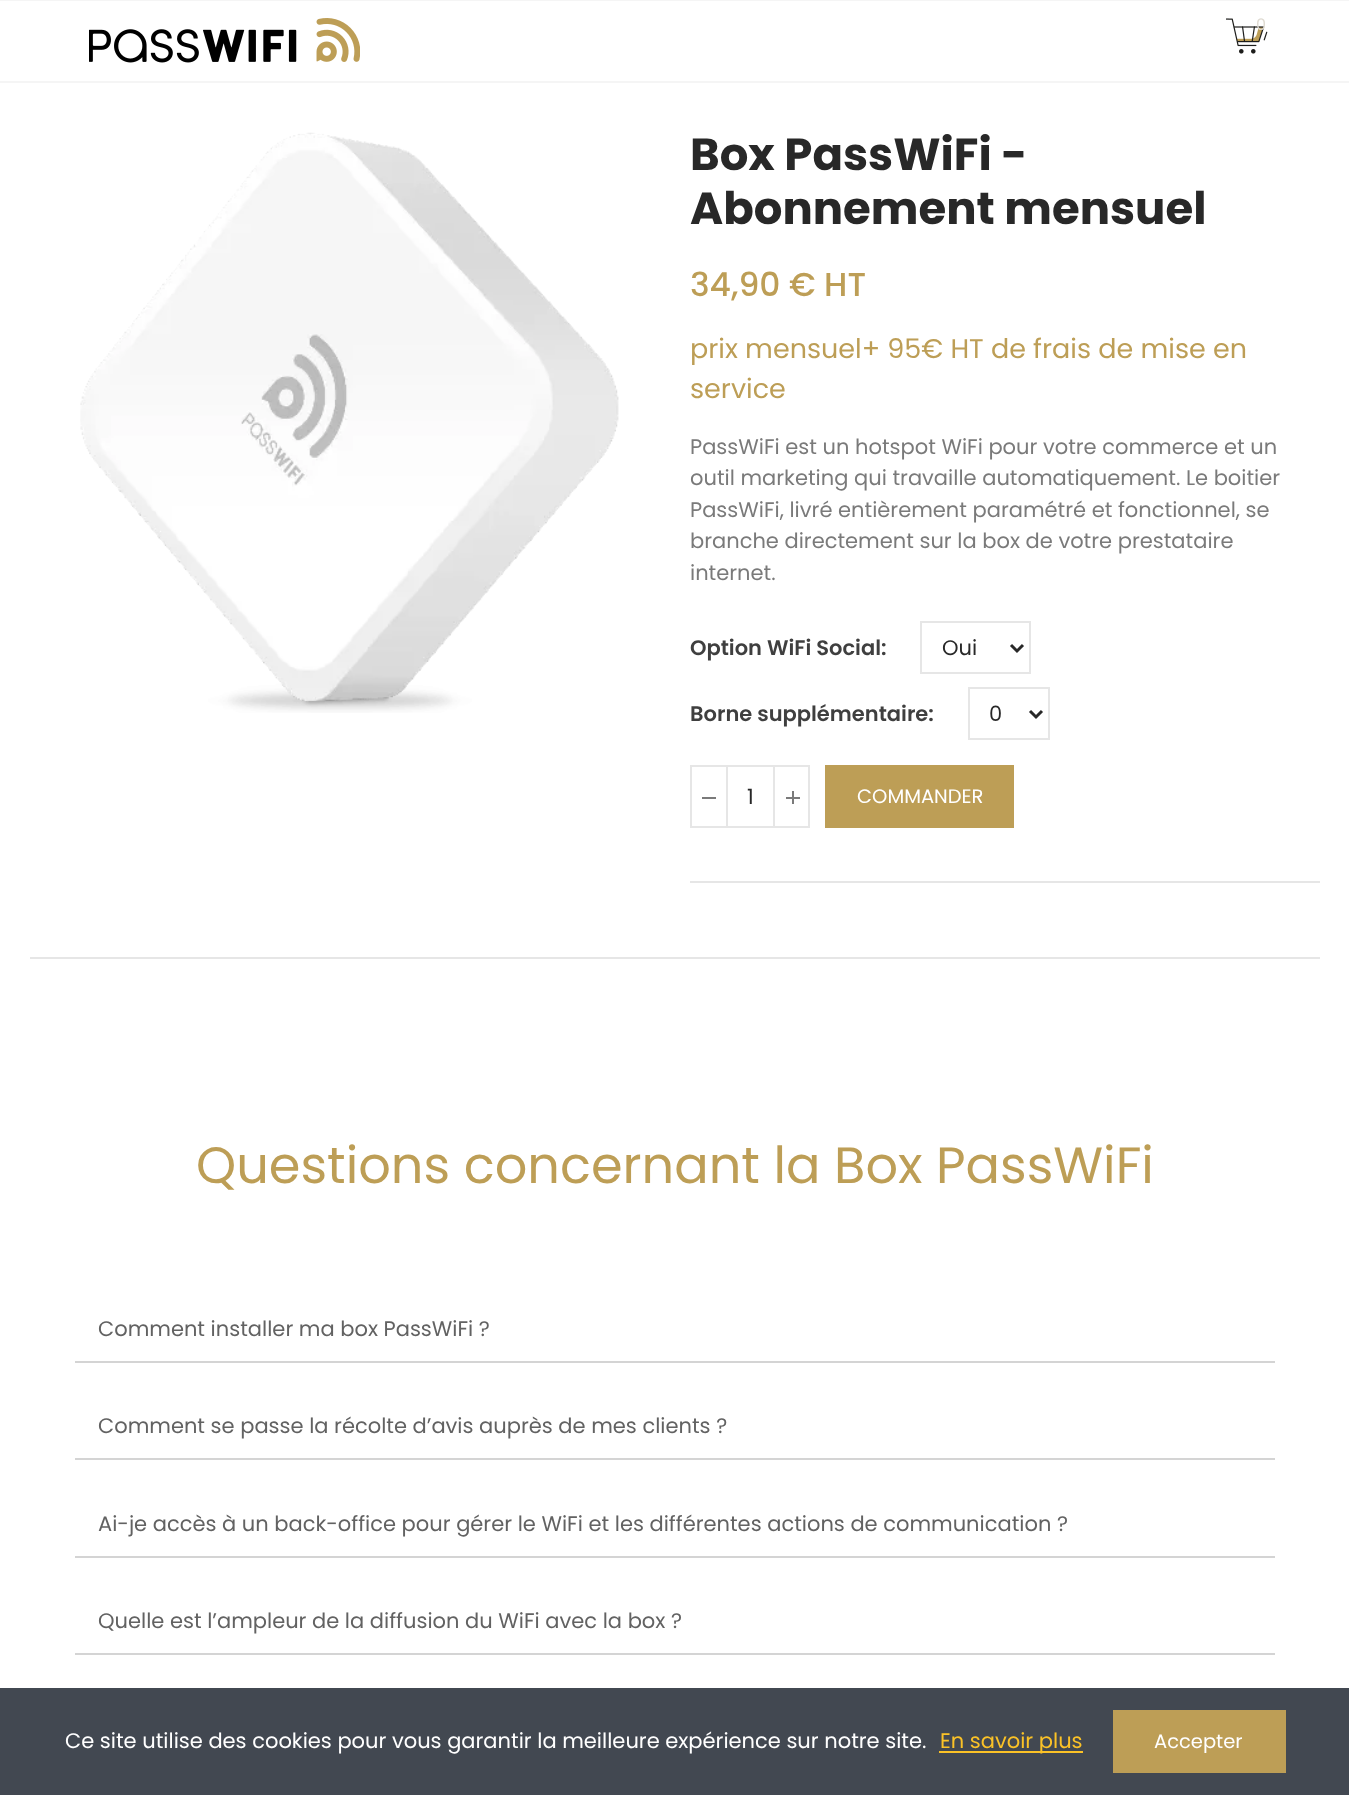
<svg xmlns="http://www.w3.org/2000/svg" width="1349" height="1795">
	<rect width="100%" height="100%" fill="#FFFFFF" />
	<rect x="0" y="0" width="1349" height="1" fill="#F5F5F5" />
	<rect x="0" y="81" width="1349" height="2" fill="#F5F5F5" />
	<image x="89" y="18" width="271" height="45" href="assets/img1.png" />
	<image x="1226" y="18" width="42" height="36" href="assets/img2.png" />
	<text x="1256" y="30" font-family="Poppins" font-size="16" fill="#DFDBD2">0</text>
	<image x="80" y="132" width="539" height="581" href="assets/img3.png" />
	<g font-family="Poppins" font-size="45" font-weight="700" fill="#282828">
		<text x="690" y="170">Box PassWiFi -</text>
		<text x="690" y="224">Abonnement mensuel</text>
	</g>
	<text x="690" y="296" font-family="Poppins" font-size="33" font-weight="500" fill="#BD9E56">34,90 € HT</text>
	<g font-family="Poppins" font-size="27" fill="#BD9E56">
		<text x="690" y="358">prix mensuel+ 95€ HT de frais de mise en</text>
		<text x="690" y="398">service</text>
	</g>
	<g font-family="Poppins" font-size="21" fill="#7A7A7A">
		<text x="690" y="454">PassWiFi est un hotspot WiFi pour votre commerce et un</text>
		<text x="690" y="485">outil marketing qui travaille automatiquement. Le boitier</text>
		<text x="690" y="517">PassWiFi, livré entièrement paramétré et fonctionnel, se</text>
		<text x="690" y="548">branche directement sur la box de votre prestataire</text>
		<text x="690" y="580">internet.</text>
	</g>
	<text x="690" y="655" font-family="Poppins" font-size="21" font-weight="600" fill="#3F3F3F">Option WiFi Social:</text>
	<rect x="921" y="622" width="109" height="51" fill="none" stroke="#E6E6E6" stroke-width="2" />
	<path d="M1011 645L1017 651L1023 645" fill="none" stroke="#282828" stroke-width="3" />
	<text x="942" y="655" font-family="Poppins" font-size="21" fill="#282828">Oui</text>
	<text x="690" y="721" font-family="Poppins" font-size="21" font-weight="600" fill="#3F3F3F">Borne supplémentaire:</text>
	<rect x="969" y="688" width="80" height="51" fill="none" stroke="#E6E6E6" stroke-width="2" />
	<path d="M1030 711L1036 717L1042 711" fill="none" stroke="#282828" stroke-width="3" />
	<text x="989" y="721" font-family="Poppins" font-size="21" fill="#282828">0</text>
	<rect x="691" y="766" width="118" height="61" fill="none" stroke="#E6E6E6" stroke-width="2" />
	<rect x="726" y="765" width="2" height="63" fill="#E6E6E6" />
	<rect x="702" y="797" width="14" height="2" fill="#7A7A7A" />
	<rect x="773" y="765" width="2" height="63" fill="#E6E6E6" />
	<rect x="792" y="791" width="2" height="13" fill="#7A7A7A" />
	<rect x="786" y="797" width="14" height="2" fill="#7A7A7A" />
	<text x="747" y="804" font-family="Poppins" font-size="21" fill="#282828">1</text>
	<rect x="825" y="765" width="189" height="63" fill="#BD9E56" />
	<text x="857" y="803" font-family="Poppins" font-size="19.5" fill="#FFFFFF">COMMANDER</text>
	<rect x="690" y="881" width="630" height="2" fill="#E6E6E6" />
	<rect x="30" y="957" width="1290" height="2" fill="#E6E6E6" />
	<text x="196" y="1183" font-family="Poppins" font-size="51" fill="#BD9E56">Questions concernant la Box PassWiFi</text>
	<rect x="75" y="1361" width="1200" height="2" fill="#D4D4D4" />
	<text x="98" y="1336" font-family="Poppins" font-size="21" fill="#626262">Comment installer ma box PassWiFi ?</text>
	<rect x="75" y="1458" width="1200" height="2" fill="#D4D4D4" />
	<text x="98" y="1433" font-family="Poppins" font-size="21" fill="#626262">Comment se passe la récolte d’avis auprès de mes clients ?</text>
	<rect x="75" y="1556" width="1200" height="2" fill="#D4D4D4" />
	<text x="98" y="1531" font-family="Poppins" font-size="21" fill="#626262">Ai-je accès à un back-office pour gérer le WiFi et les différentes actions de communication ?</text>
	<rect x="75" y="1653" width="1200" height="2" fill="#D4D4D4" />
	<text x="98" y="1628" font-family="Poppins" font-size="21" fill="#626262">Quelle est l’ampleur de la diffusion du WiFi avec la box ?</text>
	<rect x="0" y="1688" width="1349" height="107" fill="#424851" />
	<text x="65" y="1748" font-family="Poppins" font-size="21" fill="#FFFFFF">Ce site utilise des cookies pour vous garantir la meilleure expérience sur notre site.</text>
	<rect x="939" y="1751" width="144" height="2" fill="#FBC227" />
	<text x="940" y="1748" font-family="Poppins" font-size="21" fill="#FBC227">En savoir plus</text>
	<rect x="1113" y="1710" width="173" height="63" fill="#BD9E56" />
	<text x="1154" y="1748" font-family="Poppins" font-size="19.5" fill="#FFFFFF">Accepter</text>
</svg>
